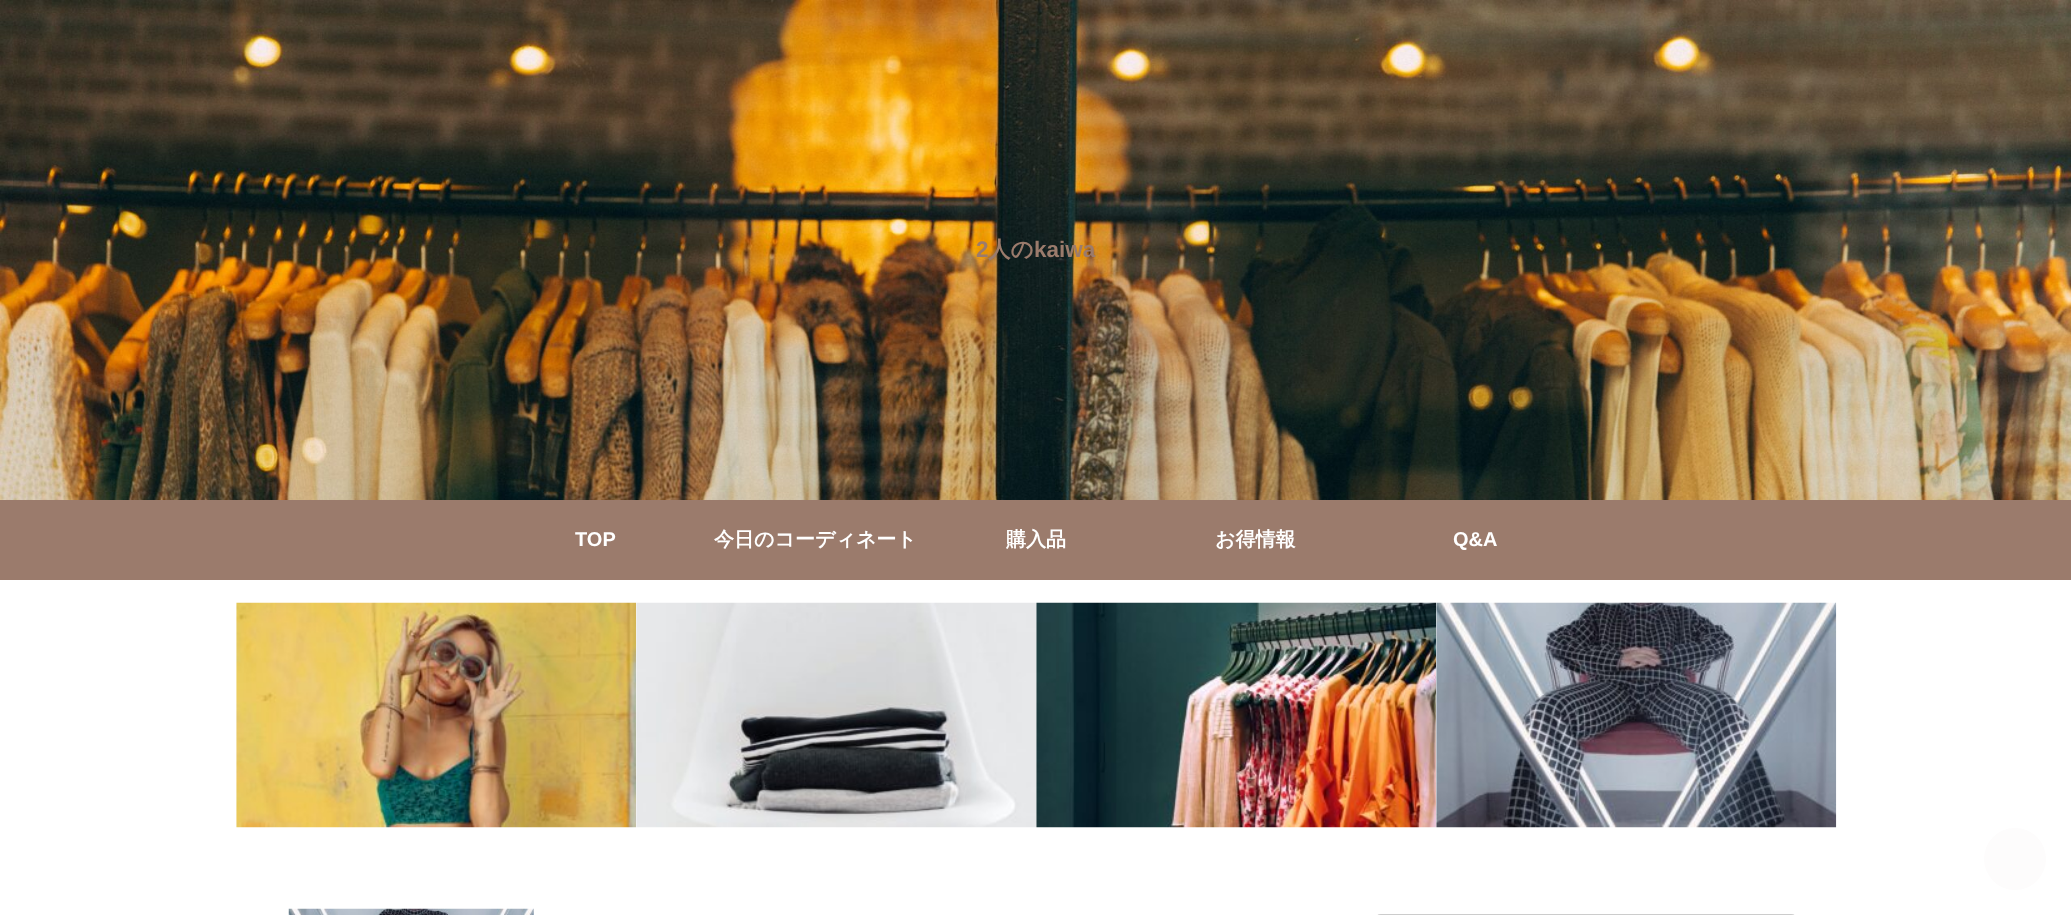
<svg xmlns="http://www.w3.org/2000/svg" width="2071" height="915">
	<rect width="100%" height="100%" fill="#FFFFFF" />
	<image x="0" y="0" width="2071" height="500" href="assets/img1.png" />
	<text x="976" y="257" font-family="Liberation Sans" font-size="22.5" font-weight="700" fill="#9B7B6C">2</text>
	<text x="988" y="257" font-family="WenQuanYi Zen Hei" font-size="22.5" font-weight="700" fill="#9B7B6C">人の</text>
	<text x="1034" y="257" font-family="Liberation Sans" font-size="22.5" font-weight="700" fill="#9B7B6C">kaiwa</text>
	<rect x="0" y="500" width="2071" height="80" fill="#9B7B6C" />
	<text x="575" y="546" font-family="Liberation Sans" font-size="20" font-weight="700" fill="#FFFFFF">TOP</text>
	<g font-family="WenQuanYi Zen Hei" font-size="20" font-weight="700" fill="#FFFFFF">
		<text x="714" y="546">今日のコーディネート</text>
		<text x="1006" y="546">購入品</text>
		<text x="1215" y="546">お得情報</text>
	</g>
	<text x="1453" y="546" font-family="Liberation Sans" font-size="20" font-weight="700" fill="#FFFFFF">Q&amp;A</text>
	<image x="236" y="602" width="401" height="226" href="assets/img2.png" />
	<image x="636" y="602" width="400" height="226" href="assets/img3.png" />
	<image x="1036" y="602" width="401" height="226" href="assets/img4.png" />
	<image x="1436" y="602" width="401" height="226" href="assets/img5.png" />
	<circle cx="2015" cy="859" r="31" fill="#FDFCFC" />
	<image x="288" y="908" width="246" height="7" href="assets/img6.png" />
	<rect x="1376.5" y="914.5" width="419" height="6" rx="4.5" fill="none" stroke="#CCCCCC" />
</svg>
